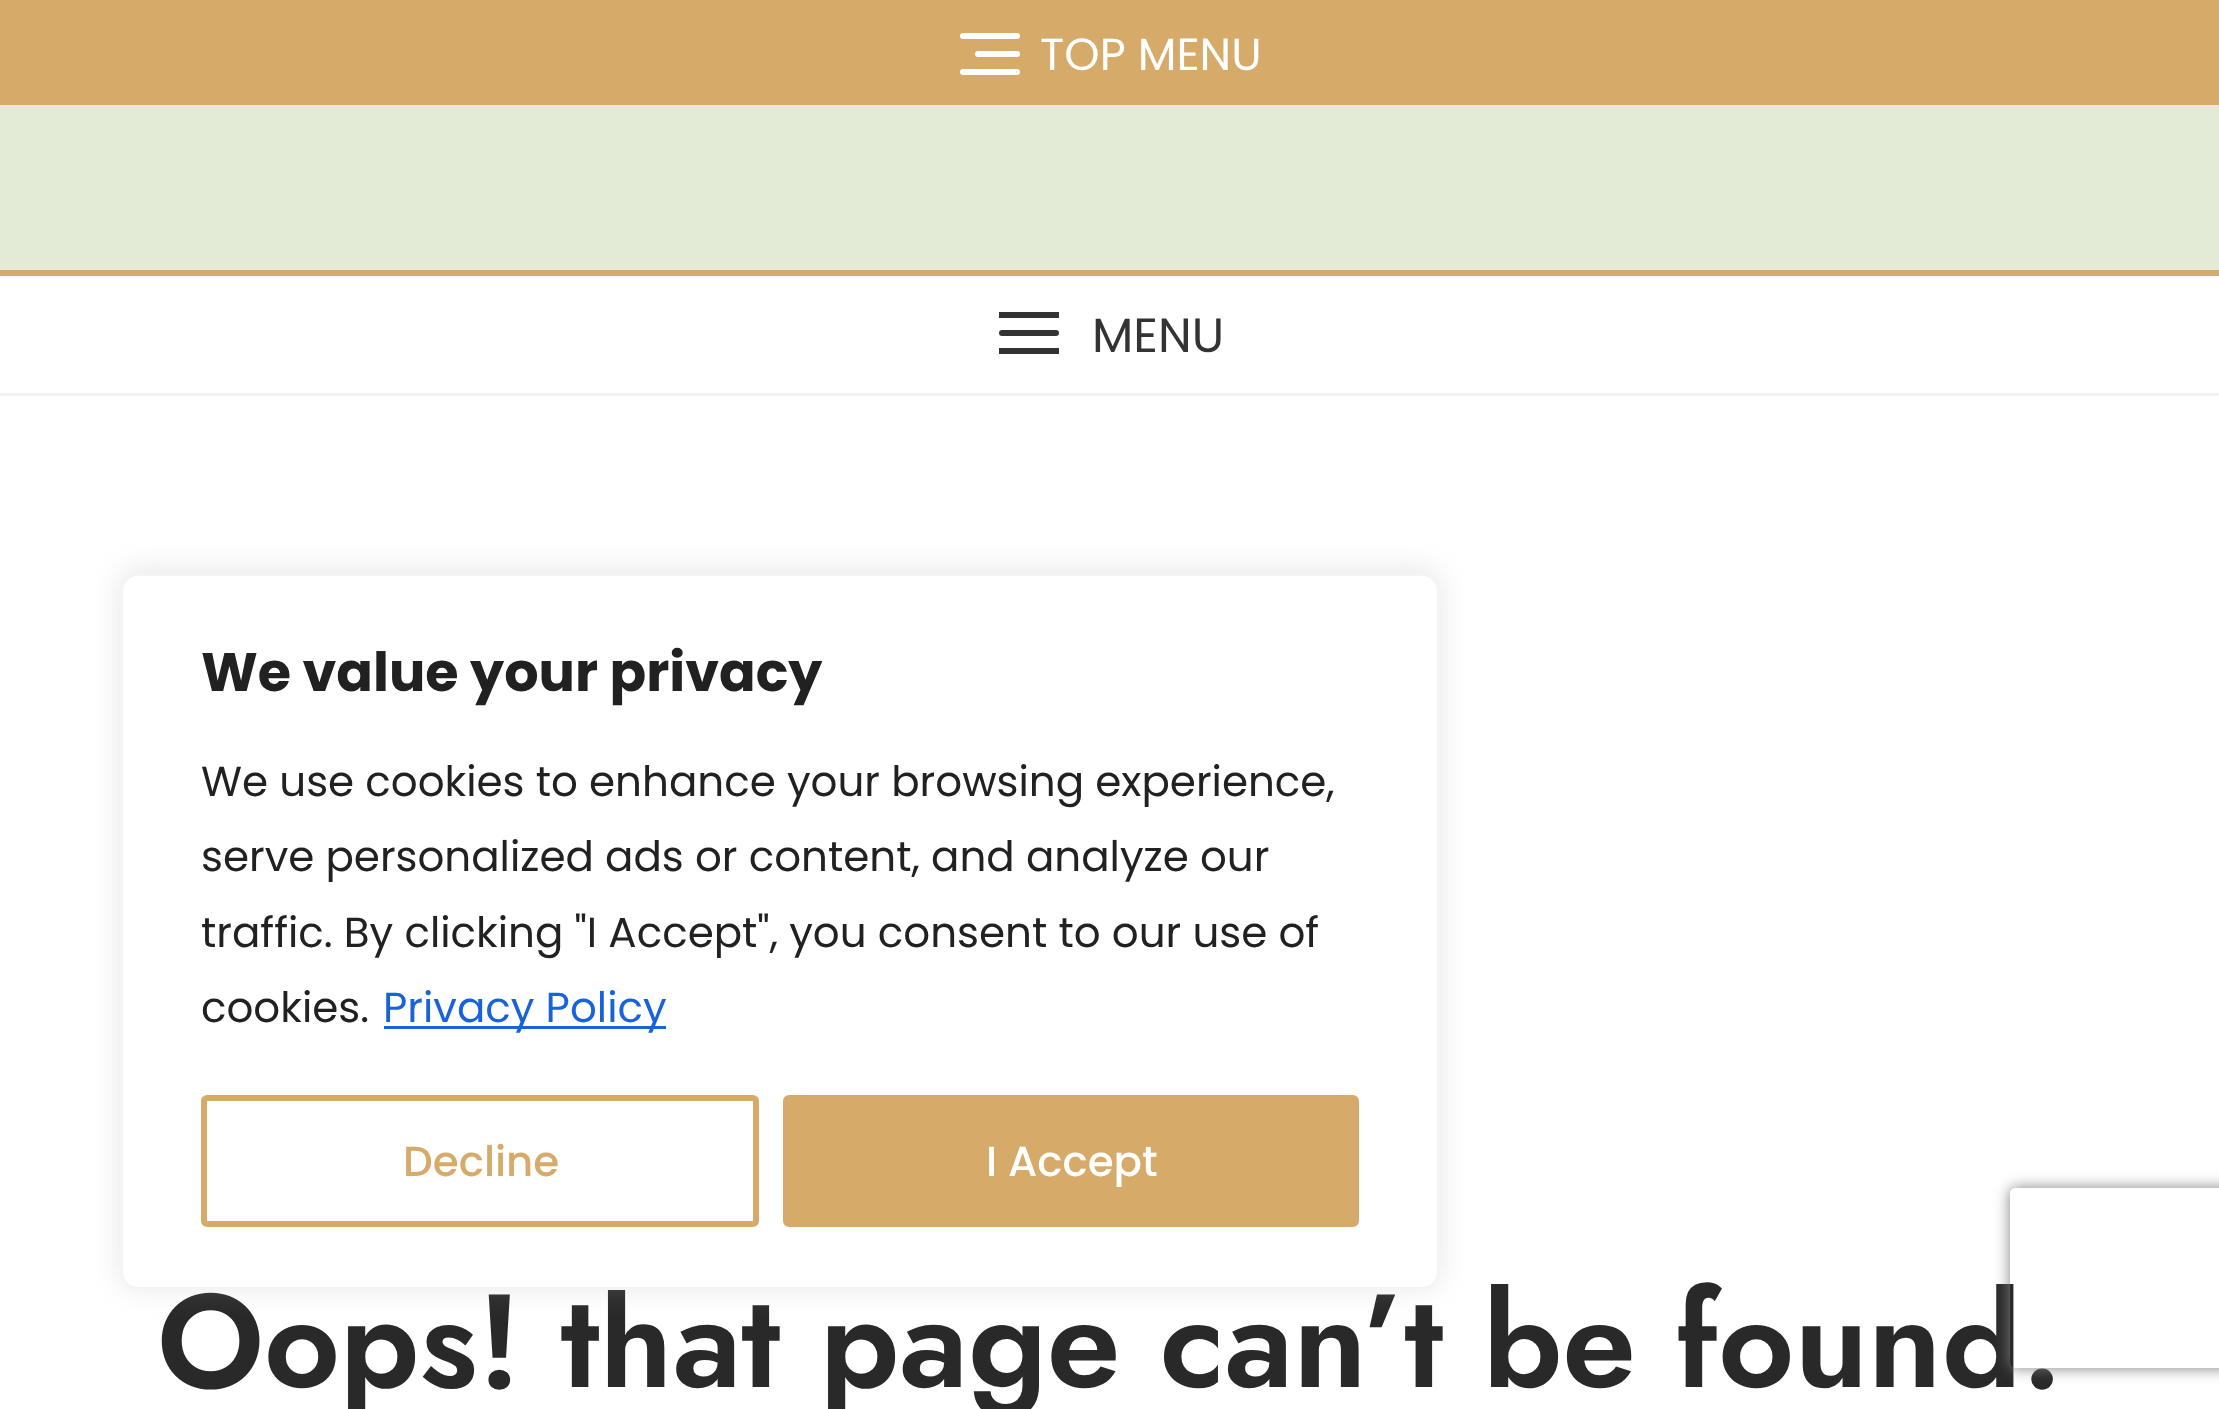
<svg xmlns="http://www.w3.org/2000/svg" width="2219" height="1409">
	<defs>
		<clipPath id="clip1"><path d="M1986 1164H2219V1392H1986ZM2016 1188H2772C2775.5 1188 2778 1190.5 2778 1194V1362C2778 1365.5 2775.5 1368 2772 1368H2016C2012.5 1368 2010 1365.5 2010 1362V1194C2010 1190.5 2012.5 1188 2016 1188Z" clip-rule="evenodd" /></clipPath>
	</defs>
	<rect width="100%" height="100%" fill="#FFFFFF" />
	<rect x="0" y="0" width="2219" height="105" fill="#D6AB6A" />
	<rect x="0" y="105" width="2219" height="3" fill="#EDE5D8" />
	<rect x="975" y="51" width="45" height="6" rx="3" fill="#FFFFFF" />
	<rect x="960" y="33" width="60" height="6" rx="3" fill="#FFFFFF" />
	<rect x="960" y="69" width="60" height="6" rx="3" fill="#FFFFFF" />
	<text x="1040" y="70" font-family="Poppins" font-size="45" fill="#FFFFFF">TOP MENU</text>
	<rect x="0" y="108" width="2219" height="162" fill="#E3EBD6" />
	<rect x="0" y="270" width="2219" height="6" fill="#D6AB6A" />
	<rect x="999" y="330" width="60" height="6" rx="3" fill="#333333" />
	<rect x="999" y="312" width="60" height="6" fill="#333333" />
	<rect x="999" y="348" width="60" height="6" fill="#333333" />
	<text x="1092" y="352" font-family="Poppins" font-size="48" fill="#333333">MENU</text>
	<rect x="0" y="393" width="2219" height="3" fill="#F2F2F2" />
	<text x="157" y="1387" font-family="Jost" font-size="132" font-weight="600" fill="#292929">Oops! that page can’t be found.</text>
	<rect x="120" y="570" width="1320" height="717" rx="18" fill="#ACABAB" fill-opacity="0.3" filter="blur(15px)" />
	<rect x="121.5" y="574.5" width="1317" height="714" rx="16.5" fill="#FFFFFF" stroke="#F4F4F4" stroke-width="3" />
	<text x="201" y="691" font-family="Poppins" font-size="54" font-weight="700" fill="#212121">We value your privacy</text>
	<g font-family="Poppins" font-size="42" fill="#212121">
		<text x="201" y="796">We use cookies to enhance your browsing experience,</text>
		<text x="201" y="871">serve personalized ads or content, and analyze our</text>
		<text x="201" y="947">traffic. By clicking "I Accept", you consent to our use of</text>
		<text x="201" y="1022">cookies.</text>
	</g>
	<rect x="384" y="1026" width="282" height="3" fill="#1863DC" />
	<text x="383" y="1022" font-family="Poppins" font-size="42" fill="#1863DC">Privacy Policy</text>
	<rect x="204" y="1098" width="552" height="126" rx="3" fill="none" stroke="#D6AB6A" stroke-width="6" />
	<text x="403" y="1176" font-family="Poppins" font-size="42" font-weight="500" fill="#D6AB6A">Decline</text>
	<rect x="786" y="1098" width="570" height="126" rx="3" fill="#D6AB6A" stroke="#D6AB6A" stroke-width="6" />
	<text x="986" y="1176" font-family="Poppins" font-size="42" font-weight="500" fill="#FFFFFF">I Accept</text>
	<g clip-path="url(#clip1)">
		<rect x="2010" y="1188" width="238" height="180" rx="6" fill="#808080" filter="blur(7.5px)" />
	</g>
</svg>
